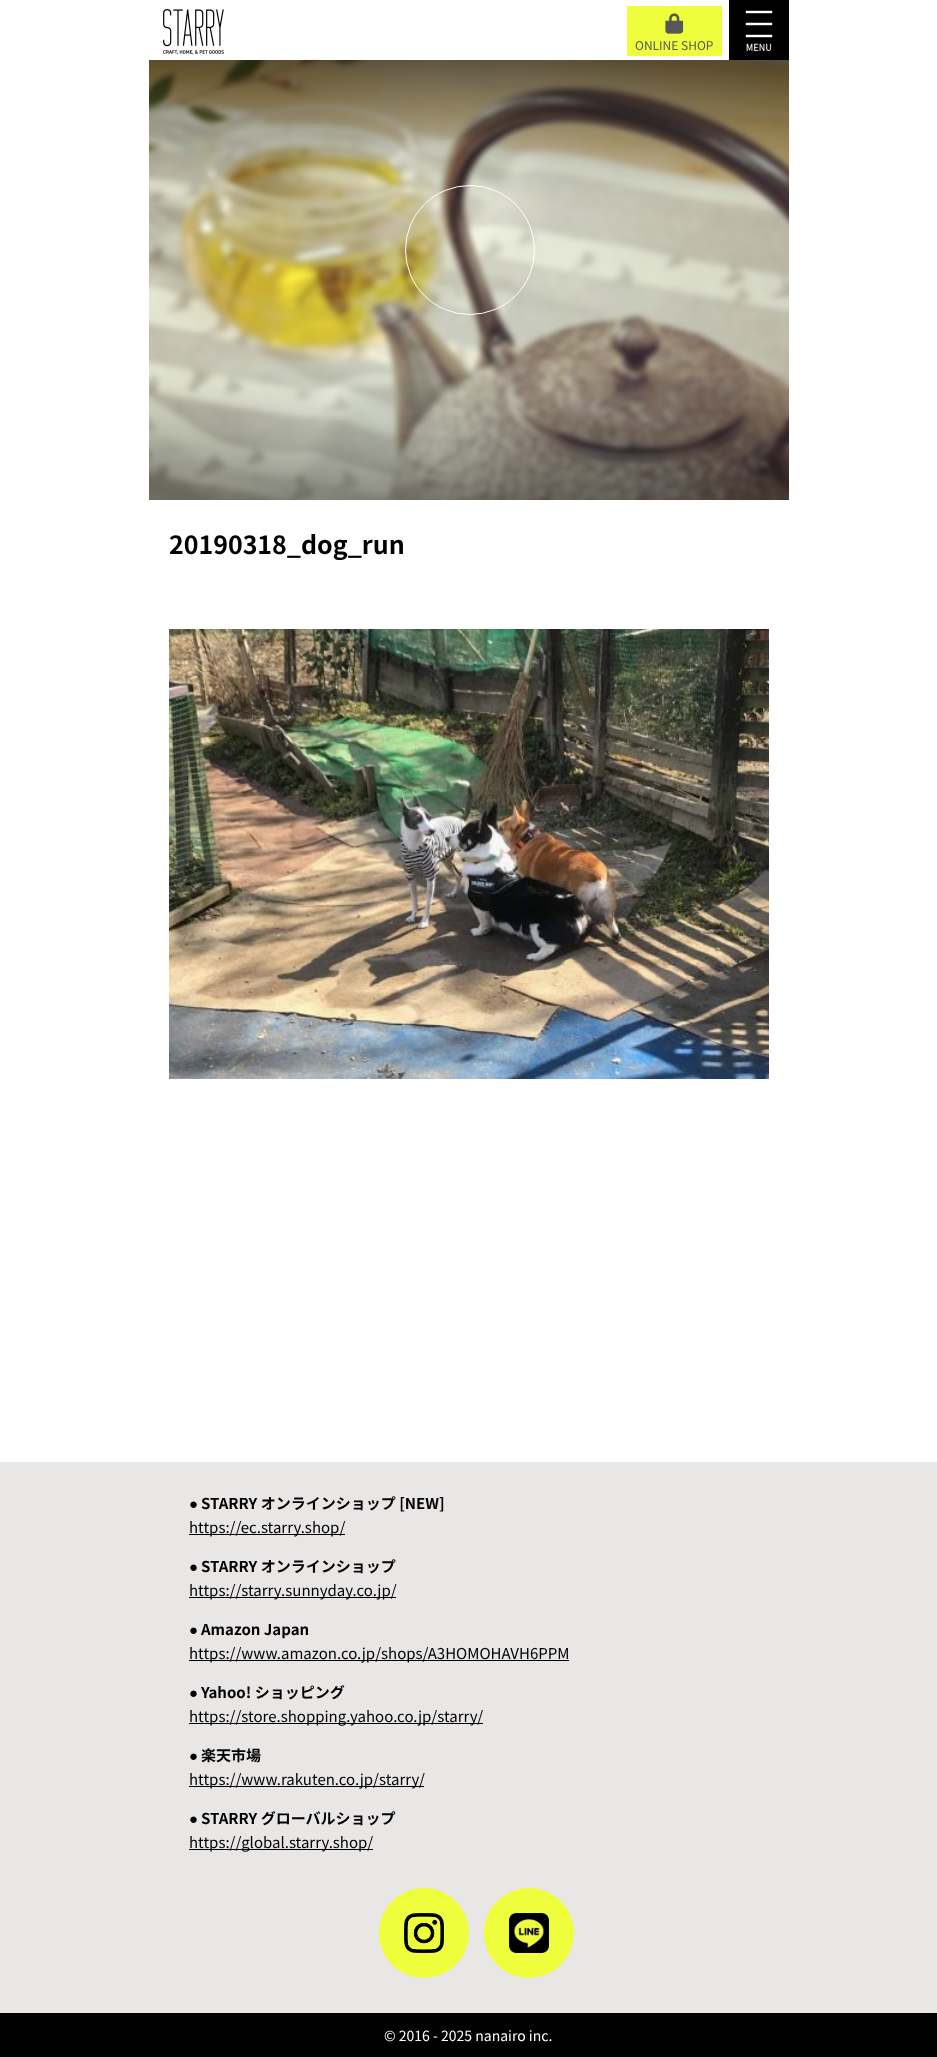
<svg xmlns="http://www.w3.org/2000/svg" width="937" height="2057">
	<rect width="100%" height="100%" fill="#FFFFFF" />
	<image x="163" y="9" width="61" height="46" href="assets/img1.png" />
	<rect x="627" y="6" width="95" height="50" fill="#EEFE3C" />
	<image x="665" y="13" width="19" height="21" href="assets/img2.png" />
	<text x="635" y="50" font-family="Noto Sans JP" font-size="12" fill="#575757">ONLINE SHOP</text>
	<image x="729" y="0" width="60" height="60" href="assets/img3.png" />
	<image x="149" y="60" width="640" height="440" href="assets/img4.png" />
	<circle cx="470" cy="250" r="64.5" fill="none" stroke="#FFFFFF" />
	<text x="169" y="554" font-family="Noto Sans JP" font-size="25" font-weight="700" fill="#000000">20190318_dog_run</text>
	<image x="169" y="629" width="600" height="450" href="assets/img5.png" />
	<rect x="0" y="1462" width="937" height="551" fill="#E9E6E6" />
	<text x="189" y="1509" font-family="Liberation Sans" font-size="15" font-weight="700" fill="#000000">●</text>
	<text x="201" y="1509" font-family="Noto Sans JP" font-size="15" font-weight="700" fill="#000000">STARRY オンラインショップ [NEW]</text>
	<rect x="189" y="1534" width="156" height="1" fill="#000000" />
	<text x="189" y="1533" font-family="Noto Sans JP" font-size="15" fill="#000000">https://ec.starry.shop/</text>
	<text x="189" y="1572" font-family="Liberation Sans" font-size="15" font-weight="700" fill="#000000">●</text>
	<text x="201" y="1572" font-family="Noto Sans JP" font-size="15" font-weight="700" fill="#000000">STARRY オンラインショップ</text>
	<rect x="189" y="1597" width="207" height="1" fill="#000000" />
	<text x="189" y="1596" font-family="Noto Sans JP" font-size="15" fill="#000000">https://starry.sunnyday.co.jp/</text>
	<text x="189" y="1635" font-family="Liberation Sans" font-size="15" font-weight="700" fill="#000000">●</text>
	<text x="201" y="1635" font-family="Noto Sans JP" font-size="15" font-weight="700" fill="#000000">Amazon Japan</text>
	<rect x="189" y="1660" width="380" height="1" fill="#000000" />
	<text x="189" y="1659" font-family="Noto Sans JP" font-size="15" fill="#000000">https://www.amazon.co.jp/shops/A3HOMOHAVH6PPM</text>
	<text x="189" y="1698" font-family="Liberation Sans" font-size="15" font-weight="700" fill="#000000">●</text>
	<text x="201" y="1698" font-family="Noto Sans JP" font-size="15" font-weight="700" fill="#000000">Yahoo! ショッピング</text>
	<rect x="189" y="1723" width="294" height="1" fill="#000000" />
	<text x="189" y="1722" font-family="Noto Sans JP" font-size="15" fill="#000000">https://store.shopping.yahoo.co.jp/starry/</text>
	<text x="189" y="1761" font-family="Liberation Sans" font-size="15" font-weight="700" fill="#000000">●</text>
	<text x="201" y="1761" font-family="Noto Sans JP" font-size="15" font-weight="700" fill="#000000">楽天市場</text>
	<rect x="189" y="1786" width="235" height="1" fill="#000000" />
	<text x="189" y="1785" font-family="Noto Sans JP" font-size="15" fill="#000000">https://www.rakuten.co.jp/starry/</text>
	<text x="189" y="1824" font-family="Liberation Sans" font-size="15" font-weight="700" fill="#000000">●</text>
	<text x="201" y="1824" font-family="Noto Sans JP" font-size="15" font-weight="700" fill="#000000">STARRY グローバルショップ</text>
	<rect x="189" y="1849" width="184" height="1" fill="#000000" />
	<text x="189" y="1848" font-family="Noto Sans JP" font-size="15" fill="#000000">https://global.starry.shop/</text>
	<circle cx="424" cy="1933" r="45" fill="#EEFE3C" />
	<image x="404" y="1913" width="40" height="40" href="assets/img6.png" />
	<circle cx="529" cy="1933" r="45" fill="#EEFE3C" />
	<image x="509" y="1913" width="40" height="40" href="assets/img7.png" />
	<rect x="0" y="2013" width="937" height="44" fill="#000000" />
	<text x="384" y="2041" font-family="Noto Sans JP" font-size="14" fill="#FFFFFF">© 2016 - 2025 nanairo inc.</text>
</svg>
